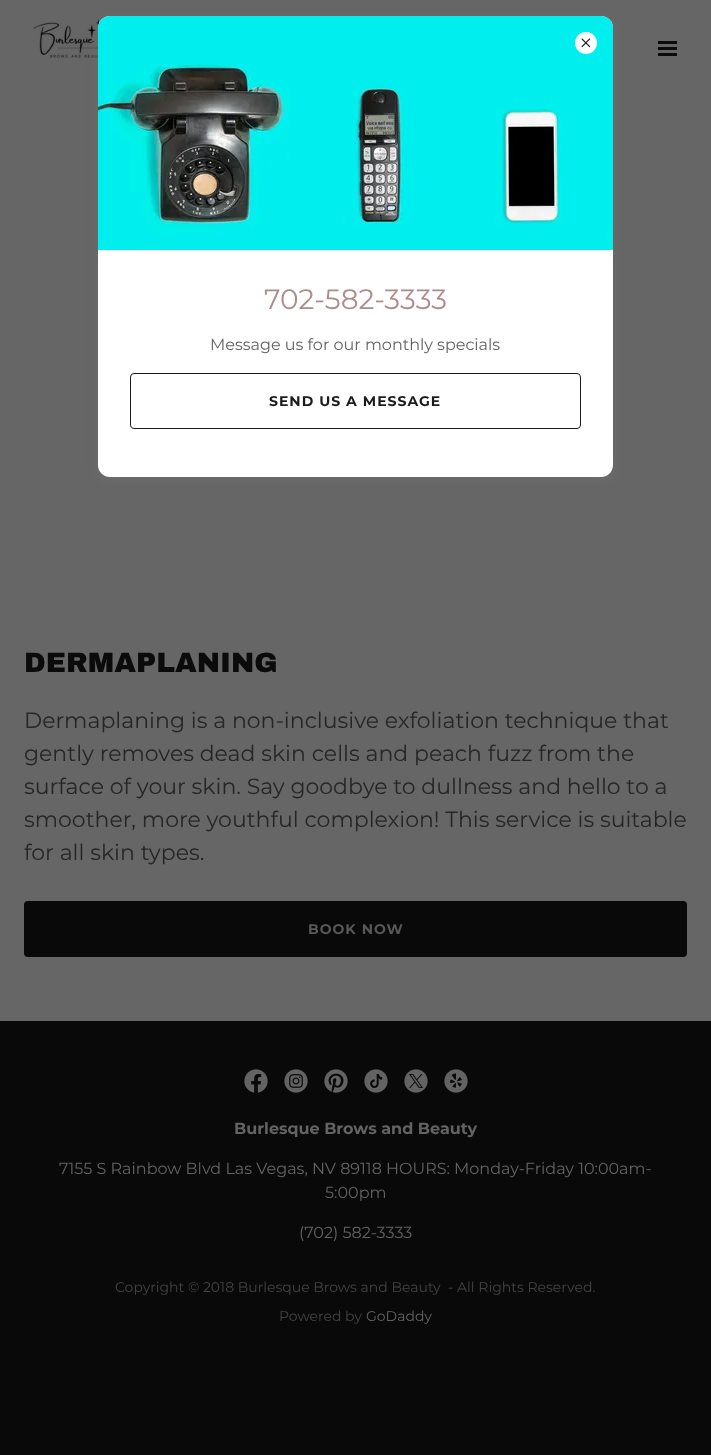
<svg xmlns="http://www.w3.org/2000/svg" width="711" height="1455">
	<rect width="100%" height="100%" fill="#090909" />
	<rect x="0" y="0" width="711" height="1021" fill="#666666" />
	<image x="33" y="19" width="69" height="39" href="assets/img1.png" />
	<rect x="658" y="41" width="19" height="3" fill="#0B0B0B" />
	<rect x="658" y="47" width="19" height="3" fill="#0B0B0B" />
	<rect x="658" y="53" width="19" height="3" fill="#0B0B0B" />
	<rect x="98" y="20" width="515" height="461" rx="12" fill="#757575" fill-opacity="0.4" filter="blur(6px)" />
	<rect x="98" y="16" width="515" height="461" rx="12" fill="#FFFFFF" />
	<image x="98" y="16" width="515" height="234" href="assets/img3.png" />
	<circle cx="586" cy="43" r="11" fill="#FFFFFF" />
	<image x="581" y="38" width="10" height="10" href="assets/img2.png" />
	<text x="264" y="309" font-family="Montserrat" font-size="28" fill="#AD8C8C">702-582-3333</text>
	<text x="210" y="350" font-family="Montserrat" font-size="16" fill="#636363">Message us for our monthly specials</text>
	<rect x="130.5" y="373.5" width="450" height="55" rx="3.5" fill="none" stroke="#1B1B1B" />
	<text x="269" y="406" font-family="Montserrat" font-size="14" font-weight="700" letter-spacing="1" fill="#1B1B1B">SEND US A MESSAGE</text>
	<text x="24" y="672" font-family="Archivo Black" font-size="28" font-weight="900" fill="#0B0B0B">DERMAPLANING</text>
	<g font-family="Montserrat" font-size="22" fill="#262626">
		<text x="24" y="728">Dermaplaning is a non-inclusive exfoliation technique that</text>
		<text x="24" y="761">gently removes dead skin cells and peach fuzz from the</text>
		<text x="24" y="794">surface of your skin. Say goodbye to dullness and hello to a</text>
		<text x="24" y="827">smoother, more youthful complexion! This service is suitable</text>
		<text x="24" y="860">for all skin types.</text>
	</g>
	<rect x="24" y="901" width="663" height="56" rx="4" fill="#090909" />
	<text x="308" y="934" font-family="Montserrat" font-size="14" font-weight="700" letter-spacing="1" fill="#585858">BOOK NOW</text>
	<image x="244" y="1069" width="24" height="24" href="assets/img4.png" />
	<image x="284" y="1069" width="24" height="24" href="assets/img5.png" />
	<image x="324" y="1069" width="24" height="24" href="assets/img6.png" />
	<image x="364" y="1069" width="24" height="24" href="assets/img7.png" />
	<image x="404" y="1069" width="24" height="24" href="assets/img8.png" />
	<image x="444" y="1069" width="24" height="24" href="assets/img9.png" />
	<text x="234" y="1134" font-family="Montserrat" font-size="16" font-weight="700" fill="#636363">Burlesque Brows and Beauty</text>
	<g font-family="Montserrat" font-size="16" fill="#636363">
		<text x="59" y="1174">7155 S Rainbow Blvd Las Vegas, NV 89118 HOURS: Monday-Friday 10:00am-</text>
		<text x="325" y="1198">5:00pm</text>
		<text x="299" y="1238">(702) 582-3333</text>
	</g>
	<g font-family="Montserrat" font-size="14" fill="#444444">
		<text x="115" y="1292" xml:space="preserve">Copyright © 2018 Burlesque Brows and Beauty  - All Rights Reserved.</text>
		<text x="279" y="1321">Powered by</text>
	</g>
	<text x="366" y="1321" font-family="Montserrat" font-size="14" fill="#636363">GoDaddy</text>
</svg>
